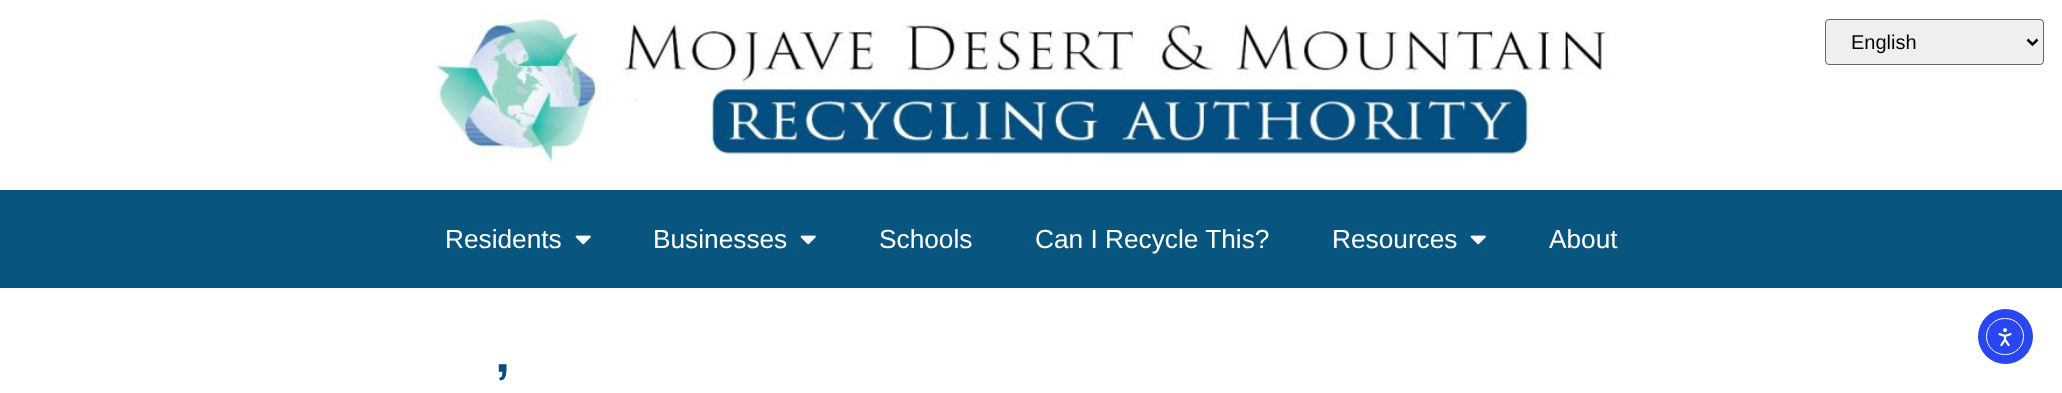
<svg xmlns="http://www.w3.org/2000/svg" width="2062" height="393">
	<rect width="100%" height="100%" fill="#FFFFFF" />
	<rect x="1825.5" y="19.5" width="218" height="45" rx="3.5" fill="#EFEFEF" stroke="#666666" />
	<path d="M2027.5 39.5L2032.5 44.5L2037.5 39.5" fill="none" stroke="#000000" stroke-width="2.5" />
	<text x="1851" y="49" font-family="Liberation Sans" font-size="20" fill="#000000">English</text>
	<image x="434" y="12" width="1176" height="150" href="assets/img1.png" />
	<rect x="0" y="190" width="2062" height="98" fill="#08557F" />
	<text x="445" y="248" font-family="Liberation Sans" font-size="26.25" fill="#FFFFFF">Residents</text>
	<image x="575" y="235" width="16" height="10" href="assets/img2.png" />
	<text x="653" y="248" font-family="Liberation Sans" font-size="26.25" fill="#FFFFFF">Businesses</text>
	<image x="800" y="235" width="16" height="10" href="assets/img2.png" />
	<g font-family="Liberation Sans" font-size="26.25" fill="#FFFFFF">
		<text x="879" y="248">Schools</text>
		<text x="1035" y="248">Can I Recycle This?</text>
		<text x="1332" y="248">Resources</text>
	</g>
	<image x="1470" y="235" width="16" height="10" href="assets/img2.png" />
	<text x="1549" y="248" font-family="Liberation Sans" font-size="26.25" fill="#FFFFFF">About</text>
	<text x="497" y="412" font-family="Oswald" font-size="59" font-weight="500" fill="#004E7F">’</text>
	<circle cx="2005.5" cy="336.5" r="27.5" fill="#2847F3" />
	<rect x="1986.5" y="318.5" width="37" height="36" rx="18" fill="none" stroke="#FFFFFF" />
	<image x="1998" y="328" width="14" height="19" href="assets/img3.png" />
</svg>
